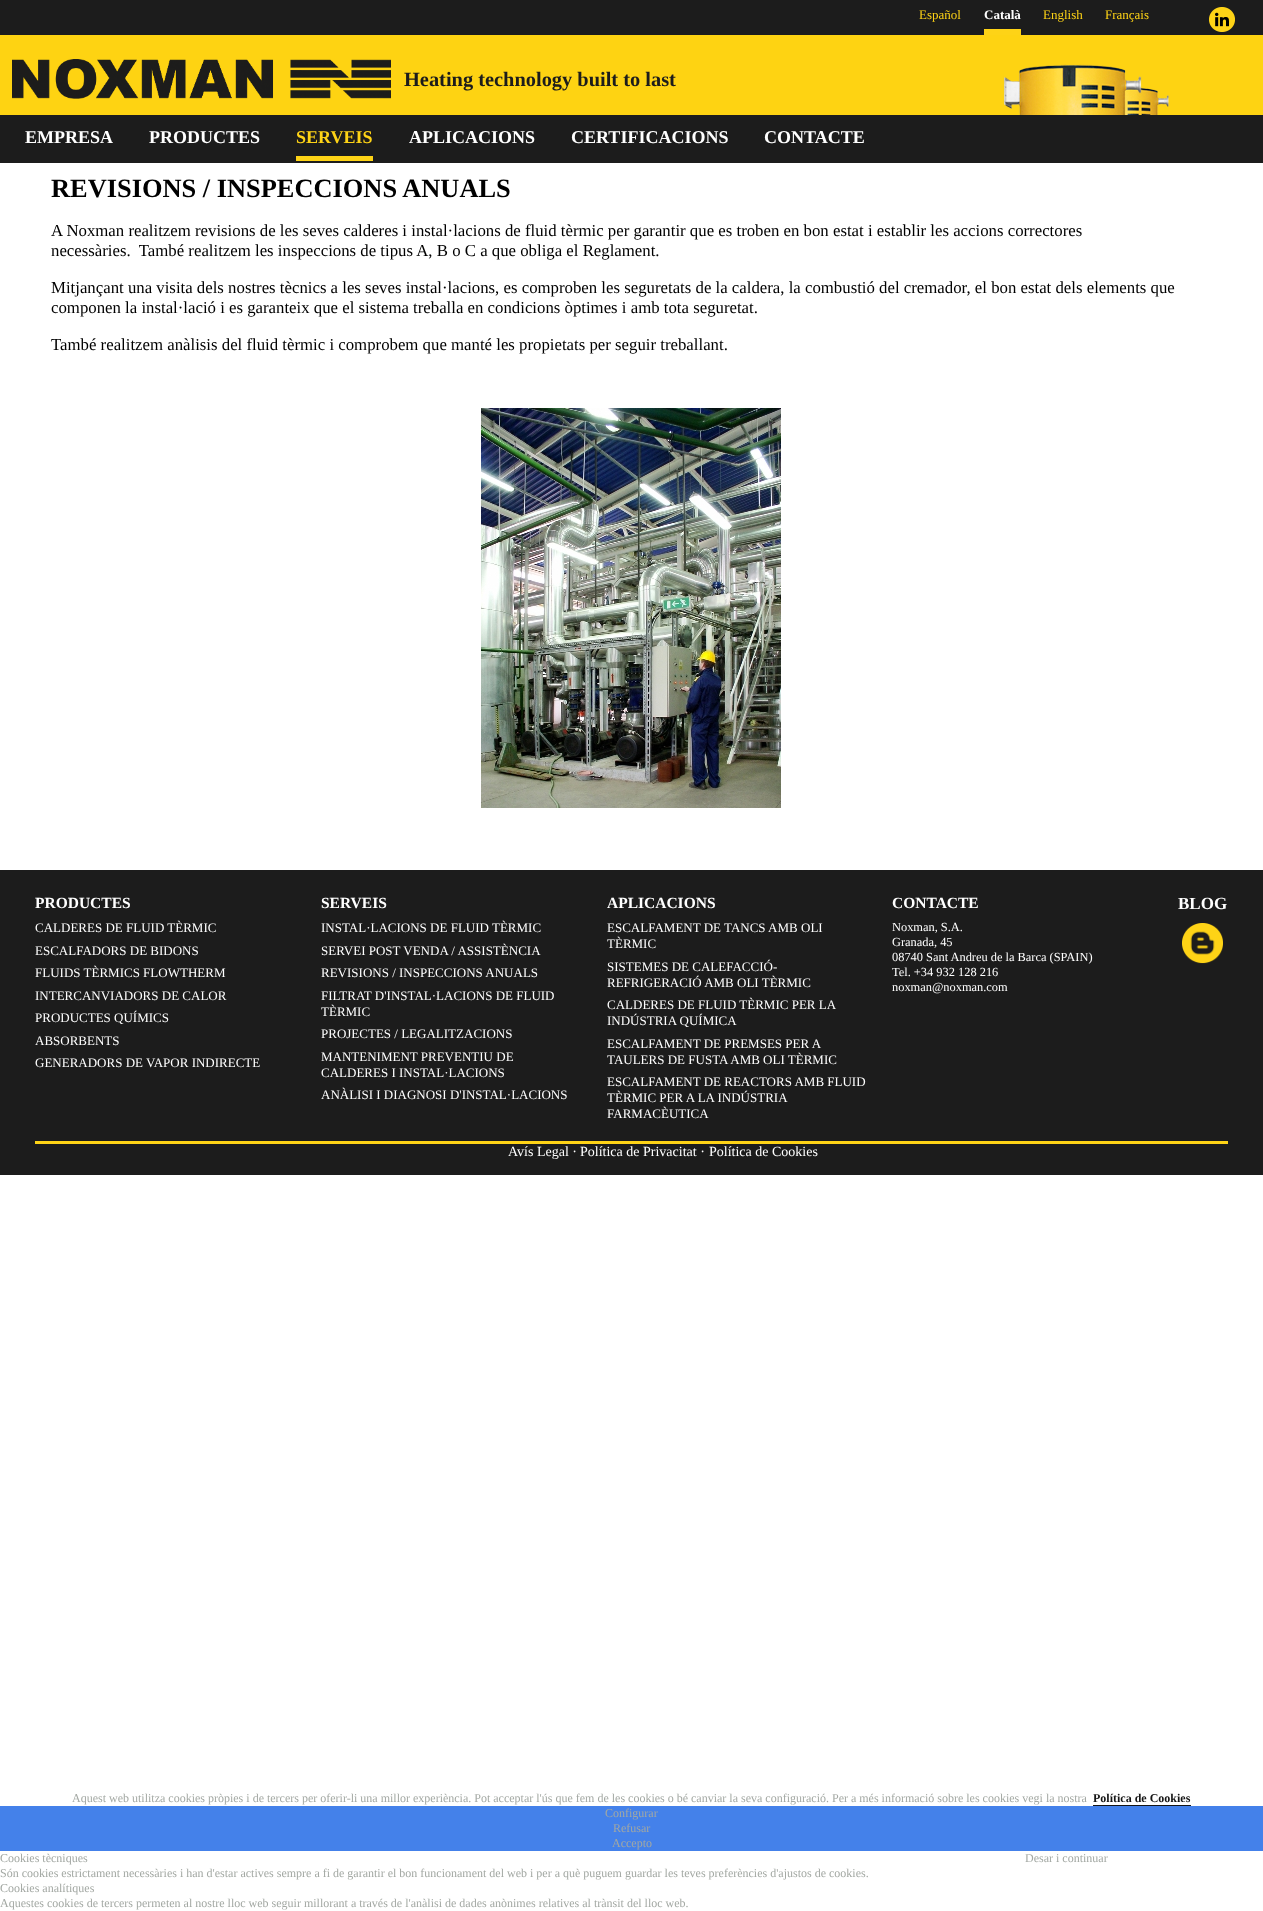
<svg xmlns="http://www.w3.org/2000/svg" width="1263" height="1911">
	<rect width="100%" height="100%" fill="#FFFFFF" />
	<rect x="0" y="0" width="1263" height="35" fill="#1C1C1C" />
	<text x="919" y="19" font-family="Liberation Serif" font-size="13" fill="#FED316">Español</text>
	<text x="984" y="19" font-family="Liberation Serif" font-size="13" font-weight="700" fill="#FFFFFF">Català</text>
	<rect x="984" y="29" width="37" height="6" fill="#FED316" />
	<g font-family="Liberation Serif" font-size="13" fill="#FED316">
		<text x="1043" y="19">English</text>
		<text x="1105" y="19">Français</text>
	</g>
	<image x="1209" y="7" width="26" height="25" href="assets/img1.png" />
	<rect x="0" y="35" width="1263" height="80" fill="#FED312" />
	<image x="12" y="59" width="379" height="40" href="assets/img2.png" />
	<text x="404" y="86" font-family="Liberation Serif" font-size="20.4" font-weight="700" fill="#1C1C1C">Heating technology built to last</text>
	<image x="1003" y="64" width="166" height="51" href="assets/img3.png" />
	<rect x="0" y="115" width="1263" height="48" fill="#1C1C1C" />
	<g font-family="Liberation Serif" font-size="18" font-weight="700" fill="#FFFFFF">
		<text x="25" y="143">EMPRESA</text>
		<text x="149" y="143">PRODUCTES</text>
	</g>
	<rect x="296" y="156" width="77" height="5" fill="#FED316" />
	<text x="296" y="143" font-family="Liberation Serif" font-size="18" font-weight="700" fill="#FED316">SERVEIS</text>
	<g font-family="Liberation Serif" font-size="18" font-weight="700" fill="#FFFFFF">
		<text x="409" y="143">APLICACIONS</text>
		<text x="571" y="143">CERTIFICACIONS</text>
		<text x="764" y="143">CONTACTE</text>
	</g>
	<text x="51" y="197" font-family="Liberation Serif" font-size="26.4" font-weight="700" fill="#000000">REVISIONS / INSPECCIONS ANUALS</text>
	<g font-family="Liberation Serif" font-size="16.8" fill="#000000">
		<text x="51" y="236">A Noxman realitzem revisions de les seves calderes i instal·lacions de fluid tèrmic per garantir que es troben en bon estat i establir les accions correctores</text>
		<text x="51" y="256" xml:space="preserve">necessàries.  També realitzem les inspeccions de tipus A, B o C a que obliga el Reglament.</text>
		<text x="51" y="293">Mitjançant una visita dels nostres tècnics a les seves instal·lacions, es comproben les seguretats de la caldera, la combustió del cremador, el bon estat dels elements que</text>
		<text x="51" y="313">componen la instal·lació i es garanteix que el sistema treballa en condicions òptimes i amb tota seguretat.</text>
		<text x="51" y="350">També realitzem anàlisis del fluid tèrmic i comprobem que manté les propietats per seguir treballant.</text>
	</g>
	<image x="481" y="408" width="300" height="400" href="assets/img4.png" />
	<rect x="0" y="870" width="1263" height="305" fill="#1C1C1C" />
	<text x="35" y="908" font-family="Liberation Serif" font-size="15.5" font-weight="700" fill="#FFFFFF">PRODUCTES</text>
	<g font-family="Liberation Serif" font-size="13" fill="#FFFFFF">
		<text x="35" y="932">CALDERES DE FLUID TÈRMIC</text>
		<text x="35" y="955">ESCALFADORS DE BIDONS</text>
		<text x="35" y="977">FLUIDS TÈRMICS FLOWTHERM</text>
		<text x="35" y="1000">INTERCANVIADORS DE CALOR</text>
		<text x="35" y="1022">PRODUCTES QUÍMICS</text>
		<text x="35" y="1045">ABSORBENTS</text>
		<text x="35" y="1067">GENERADORS DE VAPOR INDIRECTE</text>
	</g>
	<text x="321" y="908" font-family="Liberation Serif" font-size="15.5" font-weight="700" fill="#FFFFFF">SERVEIS</text>
	<g font-family="Liberation Serif" font-size="13" fill="#FFFFFF">
		<text x="321" y="932">INSTAL·LACIONS DE FLUID TÈRMIC</text>
		<text x="321" y="955">SERVEI POST VENDA / ASSISTÈNCIA</text>
		<text x="321" y="977">REVISIONS / INSPECCIONS ANUALS</text>
		<text x="321" y="1000">FILTRAT D'INSTAL·LACIONS DE FLUID</text>
		<text x="321" y="1016">TÈRMIC</text>
		<text x="321" y="1038">PROJECTES / LEGALITZACIONS</text>
		<text x="321" y="1061">MANTENIMENT PREVENTIU DE</text>
		<text x="321" y="1077">CALDERES I INSTAL·LACIONS</text>
		<text x="321" y="1099">ANÀLISI I DIAGNOSI D'INSTAL·LACIONS</text>
	</g>
	<text x="607" y="908" font-family="Liberation Serif" font-size="15.5" font-weight="700" fill="#FFFFFF">APLICACIONS</text>
	<g font-family="Liberation Serif" font-size="13" fill="#FFFFFF">
		<text x="607" y="932">ESCALFAMENT DE TANCS AMB OLI</text>
		<text x="607" y="948">TÈRMIC</text>
		<text x="607" y="971">SISTEMES DE CALEFACCIÓ-</text>
		<text x="607" y="987">REFRIGERACIÓ AMB OLI TÈRMIC</text>
		<text x="607" y="1009">CALDERES DE FLUID TÈRMIC PER LA</text>
		<text x="607" y="1025">INDÚSTRIA QUÍMICA</text>
		<text x="607" y="1048">ESCALFAMENT DE PREMSES PER A</text>
		<text x="607" y="1064">TAULERS DE FUSTA AMB OLI TÈRMIC</text>
		<text x="607" y="1086">ESCALFAMENT DE REACTORS AMB FLUID</text>
		<text x="607" y="1102">TÈRMIC PER A LA INDÚSTRIA</text>
		<text x="607" y="1118">FARMACÈUTICA</text>
	</g>
	<text x="892" y="908" font-family="Liberation Serif" font-size="15.5" font-weight="700" fill="#FFFFFF">CONTACTE</text>
	<g font-family="Liberation Serif" font-size="12.4" fill="#FFFFFF">
		<text x="892" y="931">Noxman, S.A.</text>
		<text x="892" y="946">Granada, 45</text>
		<text x="892" y="961">08740 Sant Andreu de la Barca (SPAIN)</text>
		<text x="892" y="976">Tel. +34 932 128 216</text>
		<text x="892" y="991">noxman@noxman.com</text>
	</g>
	<text x="1178" y="909" font-family="Liberation Serif" font-size="17" font-weight="700" fill="#FFFFFF">BLOG</text>
	<image x="1182" y="923" width="41" height="41" href="assets/img5.png" />
	<rect x="35" y="1141" width="1193" height="3" fill="#FED316" />
	<g font-family="Liberation Serif" font-size="14" fill="#FFFFFF">
		<text x="508" y="1156">Avís Legal ·</text>
		<text x="580" y="1156">Política de Privacitat ·</text>
		<text x="709" y="1156">Política de Cookies</text>
	</g>
	<text x="72" y="1802" font-family="Liberation Serif" font-size="12" fill="#A3A8A3">Aquest web utilitza cookies pròpies i de tercers per oferir-li una millor experiència. Pot acceptar l'ús que fem de les cookies o bé canviar la seva configuració. Per a més informació sobre les cookies vegi la nostra</text>
	<text x="1093" y="1802" font-family="Liberation Serif" font-size="12" font-weight="700" fill="#151515">Política de Cookies</text>
	<rect x="1093" y="1805" width="98" height="1" fill="#151515" />
	<rect x="0" y="1806" width="1263" height="45" fill="#4481EA" />
	<g font-family="Liberation Serif" font-size="12" fill="#A3A8A3">
		<text x="605" y="1817">Configurar</text>
		<text x="613" y="1832">Refusar</text>
		<text x="612" y="1847">Accepto</text>
		<text x="0" y="1862">Cookies tècniques</text>
		<text x="0" y="1877">Són cookies estrictament necessàries i han d'estar actives sempre a fi de garantir el bon funcionament del web i per a què puguem guardar les teves preferències d'ajustos de cookies.</text>
		<text x="1025" y="1862">Desar i continuar</text>
		<text x="0" y="1892">Cookies analítiques</text>
		<text x="0" y="1907">Aquestes cookies de tercers permeten al nostre lloc web seguir millorant a través de l'anàlisi de dades anònimes relatives al trànsit del lloc web.</text>
	</g>
</svg>
